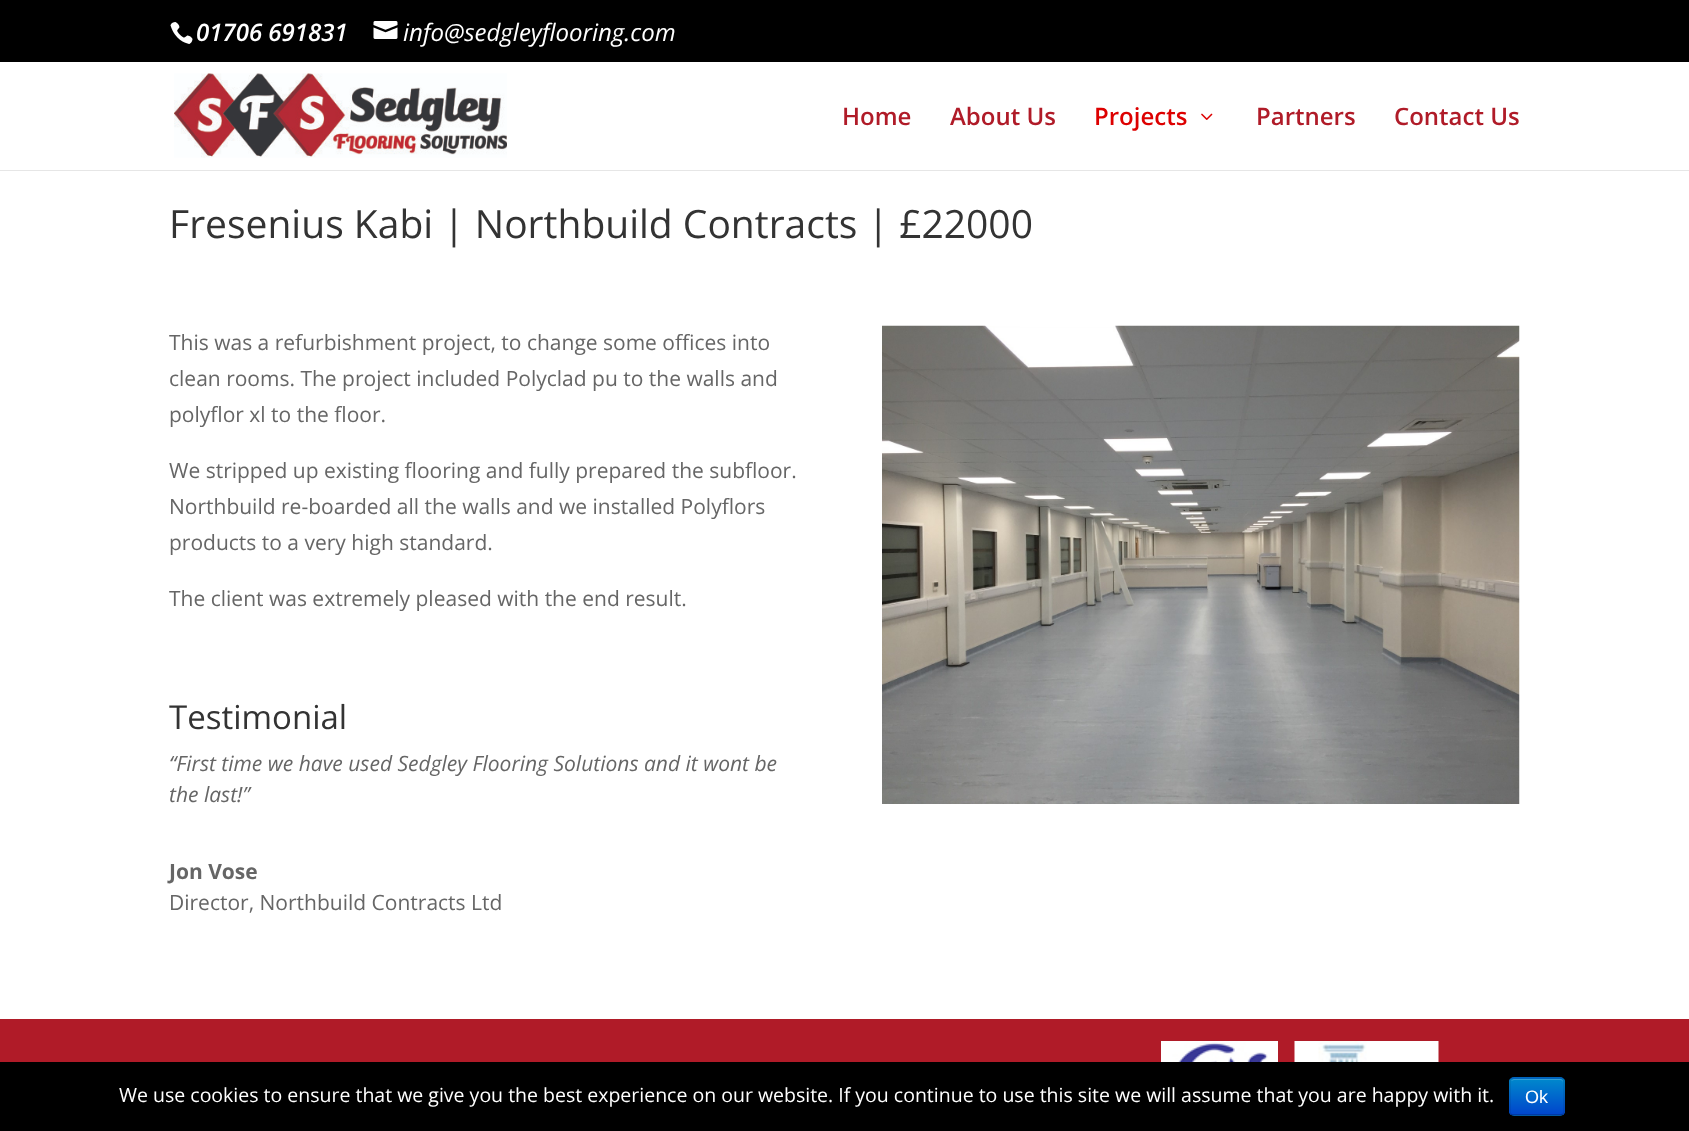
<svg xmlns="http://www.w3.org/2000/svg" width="1689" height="1131">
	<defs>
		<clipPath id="clip1"><rect x="1509" y="1077" width="56" height="39" rx="5" /></clipPath>
		<linearGradient id="g1" gradientUnits="userSpaceOnUse" x1="1537" y1="1079" x2="1537" y2="1115"><stop offset="0" stop-color="#0088CC" /><stop offset="1" stop-color="#0044CC" /></linearGradient>
	</defs>
	<rect width="100%" height="100%" fill="#FFFFFF" />
	<rect x="0" y="0" width="1689" height="62" fill="#000000" />
	<image x="170" y="22" width="23" height="22" href="assets/img1.png" />
	<text x="196" y="41" font-family="Open Sans" font-size="24" font-weight="600" font-style="italic" fill="#FFFFFF">01706 691831</text>
	<image x="373" y="21" width="25" height="18" href="assets/img2.png" />
	<text x="403" y="41" font-family="Open Sans" font-size="24" font-style="italic" fill="#FFFFFF">info@sedgleyflooring.com</text>
	<rect x="0" y="170" width="1689" height="1" fill="#E6E6E6" />
	<image x="174" y="73" width="333" height="85" href="assets/img3.png" />
	<g font-family="Open Sans" font-size="24" font-weight="600" fill="#B01B28">
		<text x="842" y="125">Home</text>
		<text x="950" y="125">About Us</text>
	</g>
	<text x="1094" y="125" font-family="Open Sans" font-size="24" font-weight="600" fill="#DD0000">Projects</text>
	<image x="1201" y="113" width="12" height="7" href="assets/img4.png" />
	<g font-family="Open Sans" font-size="24" font-weight="600" fill="#B01B28">
		<text x="1256" y="125">Partners</text>
		<text x="1394" y="125">Contact Us</text>
	</g>
	<text x="169" y="238" font-family="Open Sans" font-size="39" fill="#333333">Fresenius Kabi | Northbuild Contracts | £22000</text>
	<g font-family="Open Sans" font-size="21" fill="#666666">
		<text x="169" y="350">This was a refurbishment project, to change some offices into</text>
		<text x="169" y="386">clean rooms. The project included Polyclad pu to the walls and</text>
		<text x="169" y="422">polyflor xl to the floor.</text>
		<text x="169" y="478">We stripped up existing flooring and fully prepared the subfloor.</text>
		<text x="169" y="514">Northbuild re-boarded all the walls and we installed Polyflors</text>
		<text x="169" y="550">products to a very high standard.</text>
		<text x="169" y="606">The client was extremely pleased with the end result.</text>
	</g>
	<text x="169" y="729" font-family="Open Sans" font-size="33" fill="#333333">Testimonial</text>
	<g font-family="Open Sans" font-size="21" font-style="italic" fill="#666666">
		<text x="169" y="771">“First time we have used Sedgley Flooring Solutions and it wont be</text>
		<text x="169" y="802">the last!”</text>
	</g>
	<text x="169" y="879" font-family="Open Sans" font-size="21" font-weight="700" fill="#666666">Jon Vose</text>
	<text x="169" y="910" font-family="Open Sans" font-size="21" fill="#666666">Director, Northbuild Contracts Ltd</text>
	<image x="882" y="325" width="638" height="479" href="assets/img5.png" />
	<rect x="0" y="1019" width="1689" height="43" fill="#B01B28" />
	<image x="1161" y="1041" width="117" height="21" href="assets/img6.png" />
	<image x="1294" y="1041" width="145" height="21" href="assets/img7.png" />
	<rect x="0" y="1062" width="1689" height="69" fill="#000000" />
	<text x="119" y="1102" font-family="Open Sans" font-size="19.5" fill="#FFFFFF">We use cookies to ensure that we give you the best experience on our website. If you continue to use this site we will assume that you are happy with it.</text>
	<rect x="1509" y="1077" width="56" height="39" rx="5" fill="#006DCC" />
	<g clip-path="url(#clip1)">
		<rect x="1509" y="1079" width="56" height="36" fill="url(#g1)" />
	</g>
	<path d="M1514 1080H1560C1562 1080 1563 1081 1563 1083V1082C1563 1080 1562 1079 1560 1079H1514C1513 1079 1512 1080 1511 1081Z" fill="#339FD6" />
	<path d="M1562.5 1114C1562 1115 1561 1115 1560 1115H1513.5C1512.5 1115 1511.5 1115 1511 1114" fill="none" stroke="#000000" stroke-opacity="0.25" stroke-width="1.5" />
	<path d="M1511 1114C1510 1113.5 1510 1112.5 1510 1111.5V1081.5C1510 1080.5 1510 1079.5 1511 1079C1511.5 1078 1512.5 1078 1513.5 1078H1560C1561 1078 1562 1078 1562.5 1079C1563.5 1079.5 1564 1080.5 1564 1081.5V1111.5C1564 1112.5 1563.5 1113.5 1562.5 1114" fill="none" stroke="#000000" stroke-opacity="0.1" stroke-width="1.5" />
	<text x="1525" y="1103" font-family="Liberation Sans" font-size="18" fill="#FFFFFF">Ok</text>
</svg>
